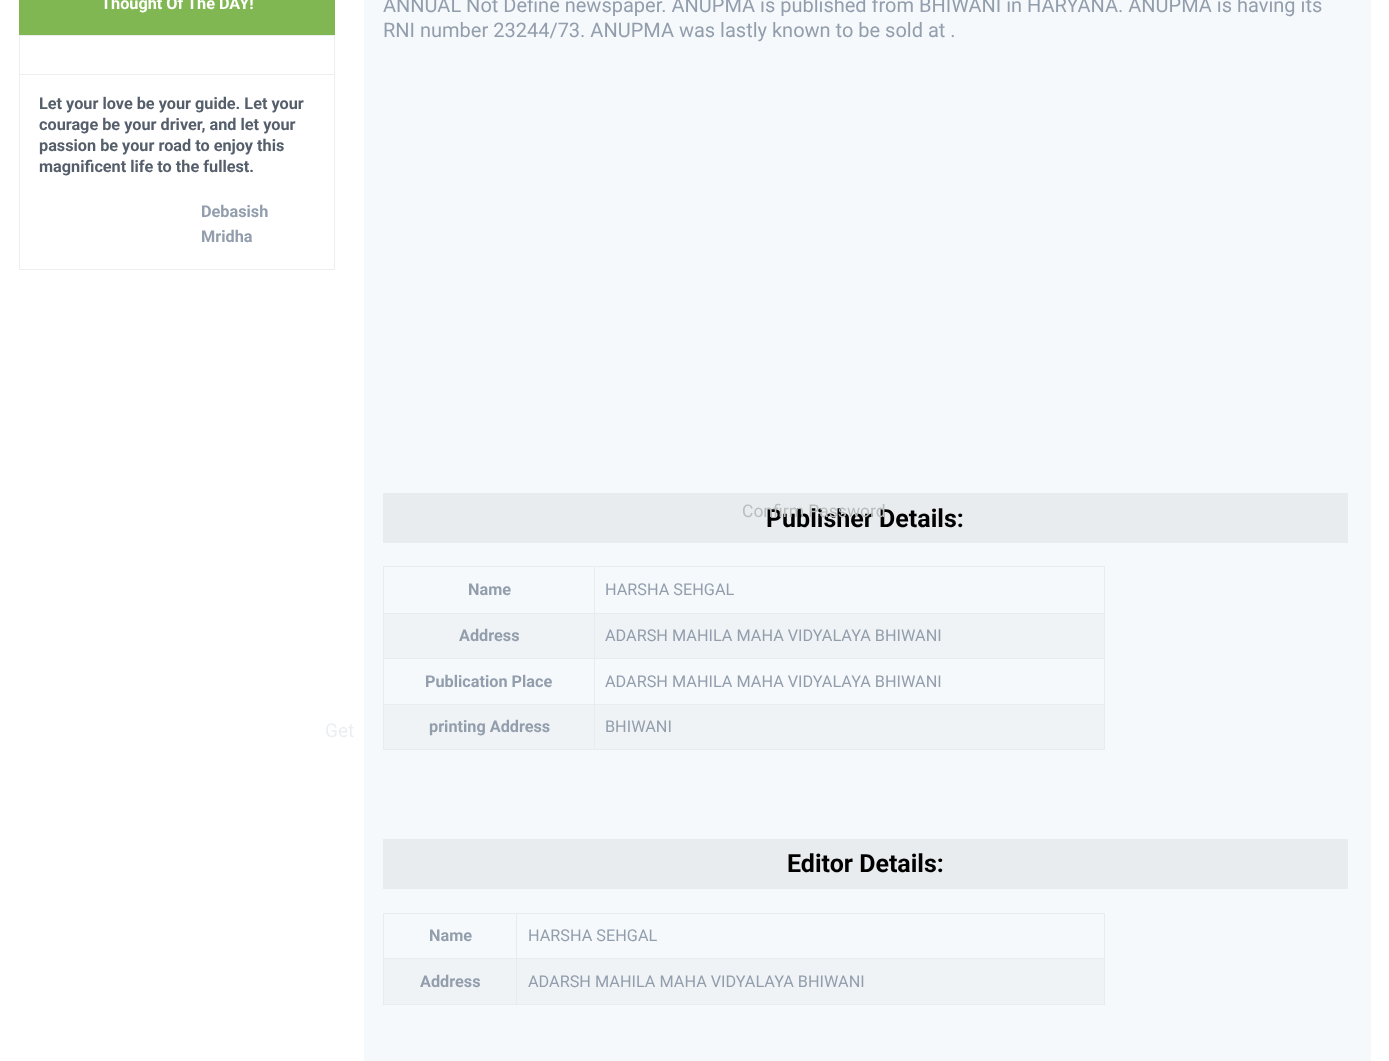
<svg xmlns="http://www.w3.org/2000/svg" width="1389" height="1061">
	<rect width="100%" height="100%" fill="#FFFFFF" />
	<rect x="19" y="0" width="316" height="35" fill="#81B752" />
	<text x="101" y="9" font-family="Roboto" font-size="16.25" font-weight="700" fill="#FFFFFF">Thought Of The DAY!</text>
	<rect x="19.5" y="35.5" width="315" height="234" fill="none" stroke="#EEEEEE" />
	<rect x="20" y="74" width="314" height="1" fill="#EEEEEE" />
	<g font-family="Roboto" font-size="16.25" font-weight="700" fill="#555E6B">
		<text x="39" y="109">Let your love be your guide. Let your</text>
		<text x="39" y="130">courage be your driver, and let your</text>
		<text x="39" y="151">passion be your road to enjoy this</text>
		<text x="39" y="172">magnificent life to the fullest.</text>
	</g>
	<g font-family="Roboto" font-size="16.25" font-weight="700" fill="#939EAD">
		<text x="201" y="217">Debasish</text>
		<text x="201" y="242">Mridha</text>
	</g>
	<rect x="364" y="0" width="1007" height="1061" fill="#F6F9FC" />
	<g font-family="Roboto" font-size="20" fill="#939EAD">
		<text x="383" y="12">ANNUAL Not Define newspaper. ANUPMA is published from BHIWANI in HARYANA. ANUPMA is having its</text>
		<text x="383" y="37">RNI number 23244/73. ANUPMA was lastly known to be sold at .</text>
	</g>
	<rect x="383" y="493" width="965" height="50" fill="#E9ECEE" />
	<text x="766" y="527" font-family="Roboto" font-size="25" font-weight="700" fill="#000000">Publisher Details:</text>
	<text x="742" y="517" font-family="Roboto" font-size="17.5" fill="#BABDBE">Confirm Password</text>
	<text x="325" y="737" font-family="Roboto" font-size="19" fill="#ECEFF2">Get</text>
	<rect x="594" y="566" width="511" height="1" fill="#E9ECEE" />
	<rect x="594" y="613" width="511" height="1" fill="#E9ECEE" />
	<rect x="384" y="614" width="720" height="44" fill="#F0F3F6" />
	<rect x="594" y="658" width="511" height="1" fill="#E9ECEE" />
	<rect x="594" y="704" width="511" height="1" fill="#E9ECEE" />
	<rect x="384" y="705" width="720" height="44" fill="#F0F3F6" />
	<rect x="1104" y="704" width="1" height="46" fill="#E9ECEE" />
	<rect x="594" y="749" width="511" height="1" fill="#E9ECEE" />
	<rect x="594" y="704" width="1" height="46" fill="#E9ECEE" />
	<rect x="383" y="704" width="212" height="1" fill="#E9ECEE" />
	<rect x="594" y="658" width="1" height="47" fill="#E9ECEE" />
	<rect x="383" y="658" width="212" height="1" fill="#E9ECEE" />
	<rect x="594" y="613" width="1" height="46" fill="#E9ECEE" />
	<rect x="383" y="613" width="212" height="1" fill="#E9ECEE" />
	<rect x="594" y="566" width="1" height="48" fill="#E9ECEE" />
	<rect x="383" y="566" width="212" height="1" fill="#E9ECEE" />
	<rect x="383" y="749" width="212" height="1" fill="#E9ECEE" />
	<rect x="383" y="704" width="1" height="46" fill="#E9ECEE" />
	<rect x="383" y="658" width="1" height="47" fill="#E9ECEE" />
	<rect x="383" y="613" width="1" height="46" fill="#E9ECEE" />
	<rect x="383" y="566" width="1" height="48" fill="#E9ECEE" />
	<text x="468" y="595" font-family="Roboto" font-size="16.25" font-weight="700" fill="#939EAD">Name</text>
	<rect x="1104" y="658" width="1" height="47" fill="#E9ECEE" />
	<rect x="1104" y="613" width="1" height="46" fill="#E9ECEE" />
	<rect x="1104" y="566" width="1" height="48" fill="#E9ECEE" />
	<text x="605" y="595" font-family="Roboto" font-size="16.25" fill="#939EAD">HARSHA SEHGAL</text>
	<text x="459" y="641" font-family="Roboto" font-size="16.25" font-weight="700" fill="#939EAD">Address</text>
	<text x="605" y="641" font-family="Roboto" font-size="16.25" fill="#939EAD">ADARSH MAHILA MAHA VIDYALAYA BHIWANI</text>
	<text x="425" y="687" font-family="Roboto" font-size="16.25" font-weight="700" fill="#939EAD">Publication Place</text>
	<text x="605" y="687" font-family="Roboto" font-size="16.25" fill="#939EAD">ADARSH MAHILA MAHA VIDYALAYA BHIWANI</text>
	<text x="429" y="732" font-family="Roboto" font-size="16.25" font-weight="700" fill="#939EAD">printing Address</text>
	<text x="605" y="732" font-family="Roboto" font-size="16.25" fill="#939EAD">BHIWANI</text>
	<rect x="383" y="839" width="965" height="50" fill="#E9ECEE" />
	<text x="787" y="872" font-family="Roboto" font-size="25" font-weight="700" fill="#000000">Editor Details:</text>
	<rect x="516" y="913" width="589" height="1" fill="#E9ECEE" />
	<rect x="516" y="958" width="589" height="1" fill="#E9ECEE" />
	<rect x="384" y="959" width="720" height="45" fill="#F0F3F6" />
	<rect x="1104" y="958" width="1" height="47" fill="#E9ECEE" />
	<rect x="516" y="1004" width="589" height="1" fill="#E9ECEE" />
	<rect x="516" y="958" width="1" height="47" fill="#E9ECEE" />
	<rect x="383" y="958" width="135" height="1" fill="#E9ECEE" />
	<rect x="516" y="913" width="1" height="46" fill="#E9ECEE" />
	<rect x="383" y="913" width="135" height="1" fill="#E9ECEE" />
	<rect x="383" y="1004" width="135" height="1" fill="#E9ECEE" />
	<rect x="383" y="958" width="1" height="47" fill="#E9ECEE" />
	<rect x="383" y="913" width="1" height="46" fill="#E9ECEE" />
	<text x="429" y="941" font-family="Roboto" font-size="16.25" font-weight="700" fill="#939EAD">Name</text>
	<rect x="1104" y="913" width="1" height="46" fill="#E9ECEE" />
	<text x="528" y="941" font-family="Roboto" font-size="16.25" fill="#939EAD">HARSHA SEHGAL</text>
	<text x="420" y="987" font-family="Roboto" font-size="16.25" font-weight="700" fill="#939EAD">Address</text>
	<text x="528" y="987" font-family="Roboto" font-size="16.25" fill="#939EAD">ADARSH MAHILA MAHA VIDYALAYA BHIWANI</text>
</svg>
